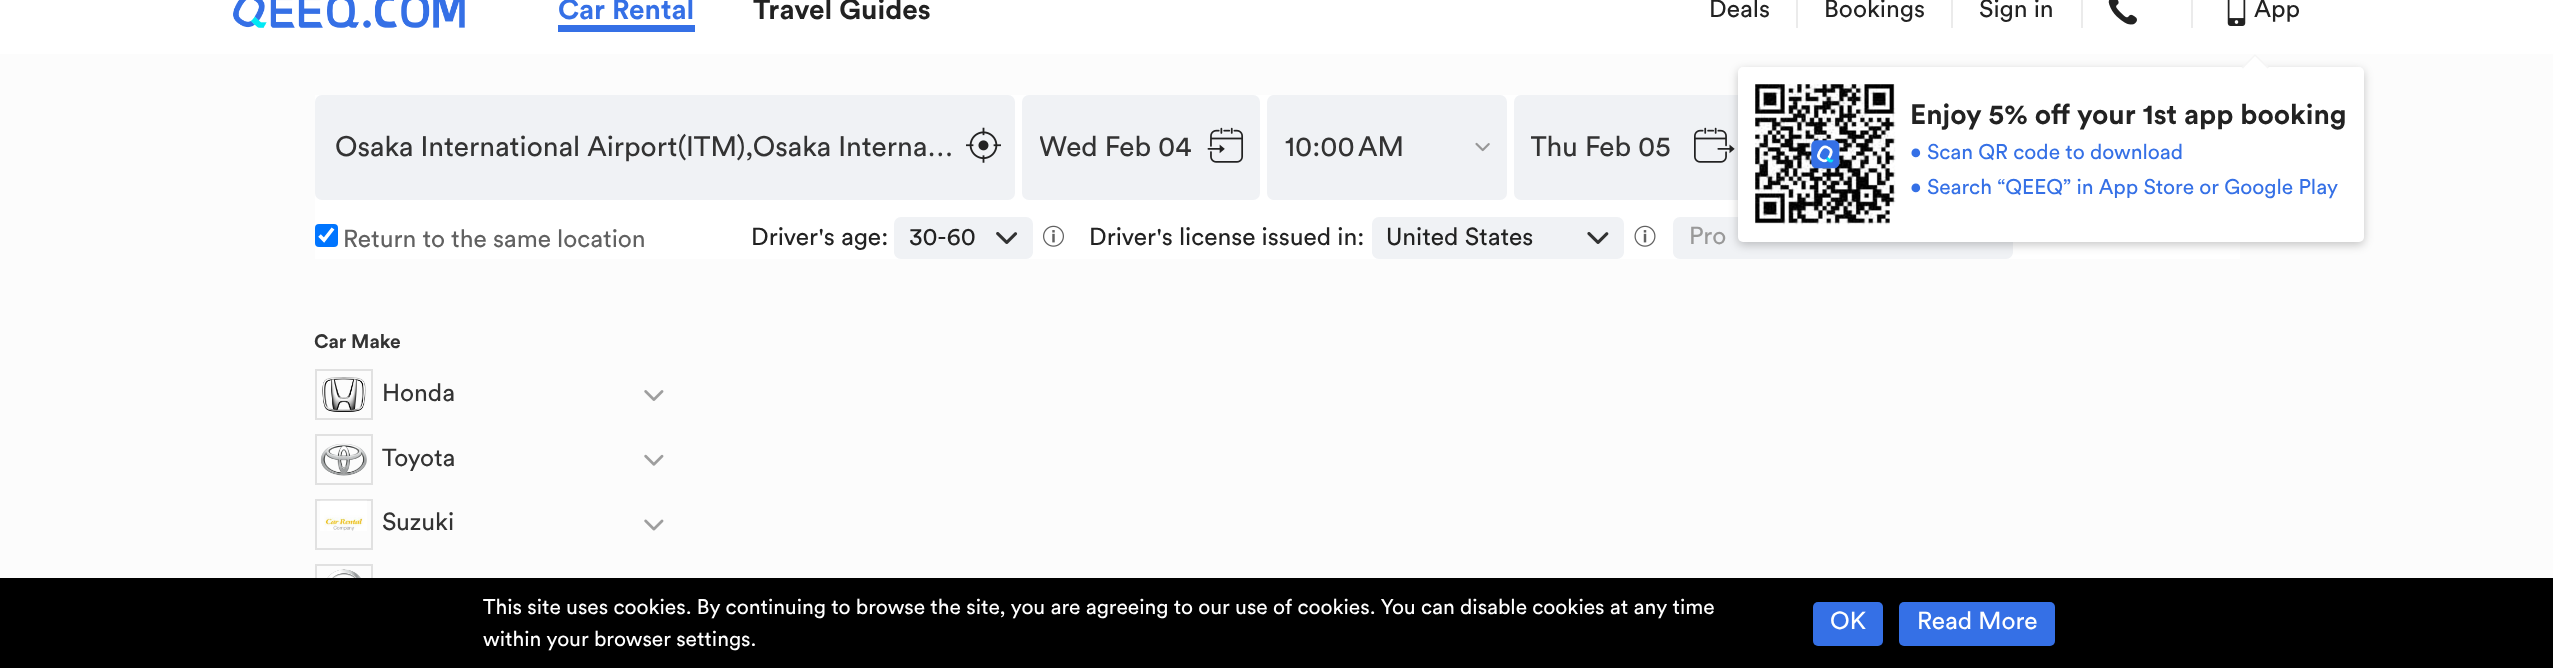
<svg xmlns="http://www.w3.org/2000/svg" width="2553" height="668">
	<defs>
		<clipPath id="clip1"><rect x="1040" y="95" width="159" height="105" /></clipPath>
		<clipPath id="clip2"><rect x="1531" y="95" width="160" height="105" /></clipPath>
	</defs>
	<rect width="100%" height="100%" fill="#FCFCFC" />
	<rect x="0" y="0" width="2553" height="54" fill="#FFFFFF" />
	<image x="233" y="0" width="232" height="28" href="assets/img1.png" />
	<text x="558" y="19" font-family="Circular" font-size="28" font-weight="700" fill="#3570E6">Car Rental</text>
	<rect x="558" y="25" width="137" height="7" fill="#3570E6" />
	<text x="753" y="19" font-family="Circular" font-size="28" font-weight="700" fill="#222222">Travel Guides</text>
	<text x="1709" y="17" font-family="Circular" font-size="24.5" fill="#222222">Deals</text>
	<rect x="1796" y="0" width="2" height="28" fill="#EBEBEB" />
	<text x="1824" y="17" font-family="Circular" font-size="24.5" fill="#222222">Bookings</text>
	<rect x="1951" y="0" width="2" height="28" fill="#EBEBEB" />
	<text x="1979" y="17" font-family="Circular" font-size="24.5" fill="#222222">Sign in</text>
	<rect x="2081" y="0" width="2" height="28" fill="#EBEBEB" />
	<image x="2108" y="0" width="29" height="25" href="assets/img2.png" />
	<rect x="2191" y="0" width="2" height="28" fill="#EBEBEB" />
	<image x="2227" y="0" width="19" height="26" href="assets/img3.png" />
	<text x="2254" y="17" font-family="Circular" font-size="24.5" fill="#222222">App</text>
	<rect x="315" y="95" width="1925" height="164" fill="#FFFFFF" />
	<rect x="315" y="95" width="700" height="105" rx="7" fill="#F0F2F5" />
	<text x="335" y="156" font-family="Circular" font-size="28" fill="#333333">Osaka International Airport(ITM),Osaka Interna…</text>
	<image x="966" y="127" width="35" height="36" href="assets/img4.png" />
	<rect x="1022" y="95" width="238" height="105" rx="7" fill="#F0F2F5" />
	<g clip-path="url(#clip1)">
		<text x="1039" y="156" font-family="Circular" font-size="28" fill="#333333">Wed Feb 04</text>
	</g>
	<image x="1207" y="127" width="37" height="36" href="assets/img5.png" />
	<rect x="1267" y="95" width="240" height="105" rx="7" fill="#F0F2F5" />
	<text x="1285" y="156" font-family="Circular" font-size="28" fill="#333333">10:00 AM</text>
	<image x="1475" y="142" width="15" height="10" href="assets/img6.png" />
	<rect x="1514" y="95" width="238" height="105" rx="7" fill="#F0F2F5" />
	<g clip-path="url(#clip2)">
		<text x="1530" y="156" font-family="Circular" font-size="28" fill="#333333">Thu Feb 05</text>
	</g>
	<image x="1694" y="127" width="41" height="36" href="assets/img7.png" />
	<rect x="315" y="224" width="23" height="23" rx="4" fill="#0075FF" />
	<path d="M319.5 235.5L324 240L333 228.5" fill="none" stroke="#FFFFFF" stroke-width="3.6" />
	<text x="343" y="247" font-family="Circular" font-size="24.5" fill="#616161">Return to the same location</text>
	<text x="751" y="245" font-family="Circular" font-size="24.5" fill="#222222">Driver's age:</text>
	<rect x="894" y="217" width="139" height="42" rx="7" fill="#F0F2F5" />
	<text x="909" y="245" font-family="Circular" font-size="24.5" fill="#222222">30-60</text>
	<image x="996" y="232" width="22" height="12" href="assets/img8.png" />
	<image x="1043" y="225" width="21" height="22" href="assets/img9.png" />
	<text x="1089" y="245" font-family="Circular" font-size="24.5" fill="#222222">Driver's license issued in:</text>
	<rect x="1372" y="217" width="252" height="42" rx="7" fill="#F0F2F5" />
	<text x="1386" y="245" font-family="Circular" font-size="24.5" fill="#222222">United States</text>
	<image x="1587" y="232" width="22" height="12" href="assets/img10.png" />
	<image x="1634" y="225" width="22" height="22" href="assets/img11.png" />
	<rect x="1674" y="218" width="338" height="40" rx="6" fill="#F0F2F5" stroke="#F0F2F5" stroke-width="2" />
	<text x="1689" y="244" font-family="Circular" font-size="24.5" fill="#999999">Pro</text>
	<text x="314" y="348" font-family="Circular" font-size="19.25" font-weight="700" fill="#333333">Car Make</text>
	<rect x="316" y="370" width="56" height="49" fill="none" stroke="#E1E1E1" stroke-width="2" />
	<image x="322" y="377" width="44" height="35" href="assets/img12.png" />
	<text x="382" y="401" font-family="Circular" font-size="24.5" fill="#333333">Honda</text>
	<image x="644" y="390" width="20" height="11" href="assets/img13.png" />
	<rect x="316" y="435" width="56" height="49" fill="none" stroke="#E1E1E1" stroke-width="2" />
	<image x="320" y="443" width="47" height="33" href="assets/img14.png" />
	<text x="382" y="466" font-family="Circular" font-size="24.5" fill="#333333">Toyota</text>
	<image x="644" y="454" width="20" height="12" href="assets/img15.png" />
	<rect x="316" y="500" width="56" height="49" fill="none" stroke="#E1E1E1" stroke-width="2" />
	<image x="320" y="500" width="47" height="31" href="assets/img16.png" />
	<text x="382" y="530" font-family="Circular" font-size="24.5" fill="#333333">Suzuki</text>
	<image x="644" y="519" width="20" height="12" href="assets/img17.png" />
	<rect x="316" y="565" width="56" height="48" fill="none" stroke="#E1E1E1" stroke-width="2" />
	<image x="327" y="569" width="34" height="9" href="assets/img18.png" />
	<rect x="1738" y="70" width="626" height="175" rx="5" fill="#000000" fill-opacity="0.22" filter="blur(5px)" />
	<rect x="1738" y="67" width="626" height="175" rx="5" fill="#FFFFFF" />
	<path d="M2255 54L2269 67.5L2255 81L2241.5 67.5Z" fill="#FFFFFF" />
	<path d="M2255 54L2269 67.5L2267.5 68.5L2255 56Z" fill="#F5F5F5" />
	<path d="M2241.5 67.5L2255 54V56L2243 68.5Z" fill="#E0E0E0" fill-opacity="0.31" />
	<image x="1755" y="84" width="141" height="141" href="assets/img19.png" />
	<image x="1811" y="140" width="29" height="29" href="assets/img20.png" />
	<text x="1910" y="124" font-family="Circular" font-size="28" font-weight="700" fill="#222222">Enjoy 5% off your 1st app booking</text>
	<g font-family="Circular" font-size="21" fill="#3570E6">
		<text x="1910" y="159">• Scan QR code to download</text>
		<text x="1910" y="194">• Search “QEEQ” in App Store or Google Play</text>
	</g>
	<rect x="0" y="578" width="2553" height="90" fill="#000000" />
	<g font-family="Circular" font-size="21" fill="#FFFFFF">
		<text x="483" y="614">This site uses cookies. By continuing to browse the site, you are agreeing to our use of cookies. You can disable cookies at any time</text>
		<text x="483" y="646">within your browser settings.</text>
	</g>
	<rect x="1813" y="602" width="70" height="44" rx="5" fill="#3570E6" />
	<text x="1830" y="629" font-family="Circular" font-size="24.5" fill="#FFFFFF">OK</text>
	<rect x="1899" y="602" width="156" height="44" rx="5" fill="#3570E6" />
	<text x="1917" y="629" font-family="Circular" font-size="24.5" fill="#FFFFFF">Read More</text>
</svg>
